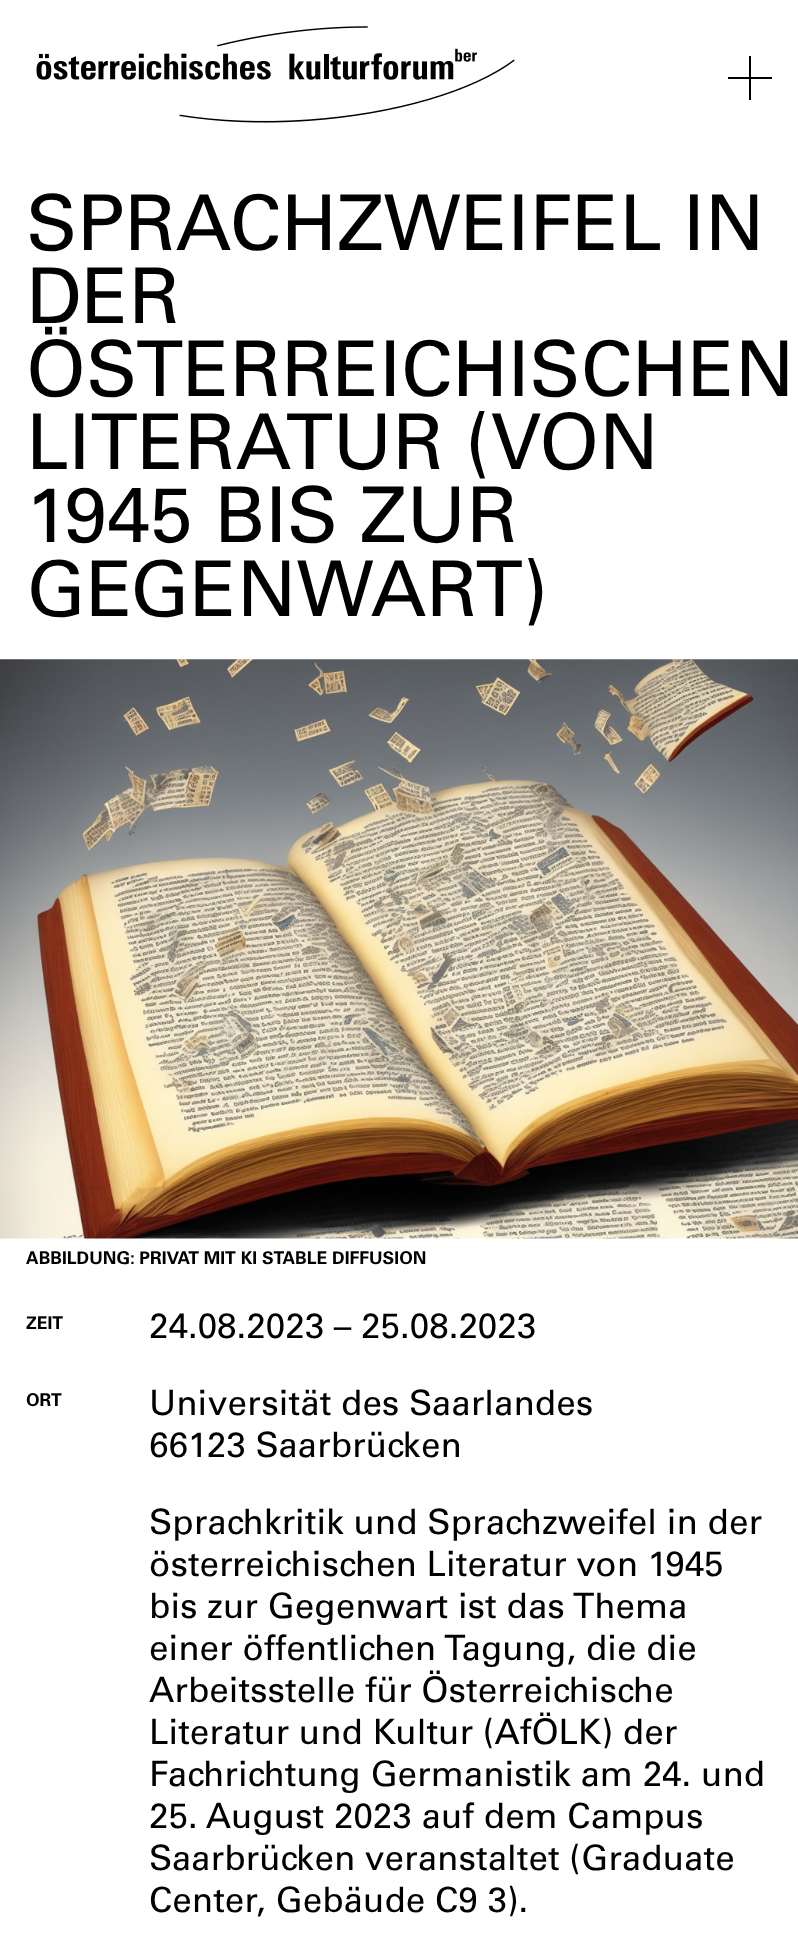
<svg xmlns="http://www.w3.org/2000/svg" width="798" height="1934">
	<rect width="100%" height="100%" fill="#FFFFFF" />
	<image x="36" y="26" width="479" height="97" href="assets/img1.png" />
	<rect x="749" y="56" width="2" height="44" fill="#000000" />
	<rect x="728" y="77" width="44" height="2" fill="#000000" />
	<g font-family="Univers" font-size="77" fill="#000000">
		<text x="26" y="250">SPRACHZWEIFEL IN</text>
		<text x="26" y="323">DER</text>
		<text x="26" y="396">ÖSTERREICHISCHEN</text>
		<text x="26" y="469">LITERATUR (VON</text>
		<text x="26" y="542">1945 BIS ZUR</text>
		<text x="26" y="616">GEGENWART)</text>
	</g>
	<image x="0" y="659" width="798" height="580" href="assets/img2.png" />
	<g font-family="Univers" font-size="17.5" font-weight="700" fill="#000000">
		<text x="26" y="1264">ABBILDUNG: PRIVAT MIT KI STABLE DIFFUSION</text>
		<text x="26" y="1329">ZEIT</text>
	</g>
	<text x="149" y="1338" font-family="Univers" font-size="35" fill="#000000">24.08.2023 – 25.08.2023</text>
	<text x="26" y="1406" font-family="Univers" font-size="17.5" font-weight="700" fill="#000000">ORT</text>
	<g font-family="Univers" font-size="35" fill="#000000">
		<text x="149" y="1415">Universität des Saarlandes</text>
		<text x="149" y="1457">66123 Saarbrücken</text>
		<text x="149" y="1534">Sprachkritik und Sprachzweifel in der</text>
		<text x="149" y="1576">österreichischen Literatur von 1945</text>
		<text x="149" y="1618">bis zur Gegenwart ist das Thema</text>
		<text x="149" y="1660">einer öffentlichen Tagung, die die</text>
		<text x="149" y="1702">Arbeitsstelle für Österreichische</text>
		<text x="149" y="1744">Literatur und Kultur (AfÖLK) der</text>
		<text x="149" y="1786">Fachrichtung Germanistik am 24. und</text>
		<text x="149" y="1828">25. August 2023 auf dem Campus</text>
		<text x="149" y="1870">Saarbrücken veranstaltet (Graduate</text>
		<text x="149" y="1912">Center, Gebäude C9 3).</text>
	</g>
</svg>
